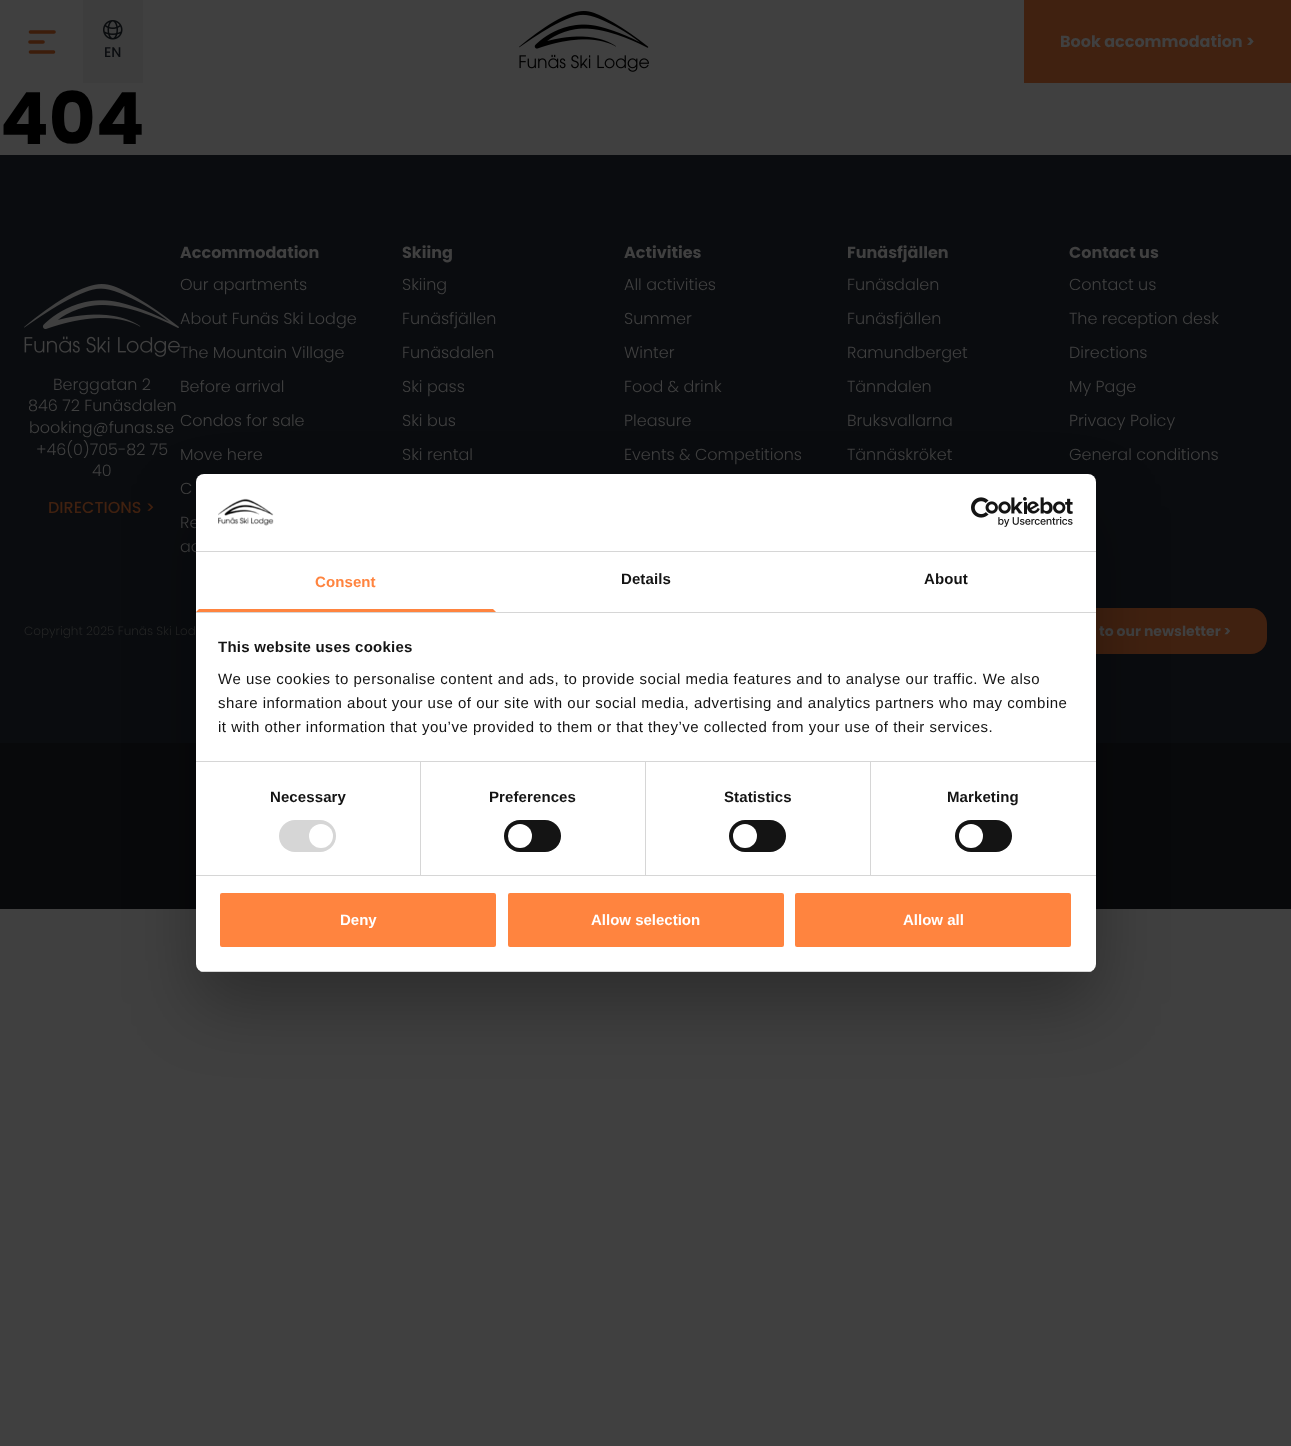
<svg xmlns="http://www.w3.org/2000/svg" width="1291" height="1446">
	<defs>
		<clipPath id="clip1"><rect x="196" y="474" width="900" height="498" rx="8" /></clipPath>
	</defs>
	<rect width="100%" height="100%" fill="#404040" />
	<image x="519" y="11" width="130" height="61" href="assets/img1.png" />
	<rect x="1024" y="0" width="267" height="83" fill="#402110" />
	<text x="1060" y="47" font-family="Poppins" font-size="16" font-weight="700" fill="#404040">Book accommodation &gt;</text>
	<path d="M54 32H30.5M43 42H30M53.5 52H30.5" fill="none" stroke="#3C1D0B" stroke-width="3.6" stroke-linecap="round" />
	<rect x="83" y="0" width="60" height="83" fill="#3D3D3D" />
	<image x="103" y="20" width="20" height="20" href="assets/img2.png" />
	<text x="104" y="57" font-family="Poppins" font-size="14" font-weight="500" fill="#0A0C0F">EN</text>
	<text x="0" y="144" font-family="Poppins" font-size="72" font-weight="700" fill="#000000">404</text>
	<rect x="0" y="155" width="1291" height="588" fill="#0A0C0F" />
	<image x="24" y="284" width="156" height="73" href="assets/img3.png" />
	<g font-family="Poppins" font-size="16" font-weight="300" fill="#404040">
		<text x="53" y="390">Berggatan 2</text>
		<text x="28" y="411">846 72 Funäsdalen</text>
		<text x="29" y="433">booking@funas.se</text>
		<text x="36" y="455">+46(0)705-82 75</text>
		<text x="92" y="476">40</text>
	</g>
	<text x="48" y="513" font-family="Poppins" font-size="16" font-weight="500" fill="#402110">DIRECTIONS &gt;</text>
	<text x="180" y="258" font-family="Poppins" font-size="16" font-weight="700" fill="#404040">Accommodation</text>
	<g font-family="Poppins" font-size="16" font-weight="300" fill="#404040">
		<text x="180" y="290">Our apartments</text>
		<text x="180" y="324">About Funäs Ski Lodge</text>
		<text x="180" y="358">The Mountain Village</text>
		<text x="180" y="392">Before arrival</text>
		<text x="180" y="426">Condos for sale</text>
		<text x="180" y="460">Move here</text>
		<text x="180" y="494">C</text>
		<text x="180" y="528">Re</text>
		<text x="180" y="552">ac</text>
	</g>
	<text x="402" y="258" font-family="Poppins" font-size="16" font-weight="700" fill="#404040">Skiing</text>
	<g font-family="Poppins" font-size="16" font-weight="300" fill="#404040">
		<text x="402" y="290">Skiing</text>
		<text x="402" y="324">Funäsfjällen</text>
		<text x="402" y="358">Funäsdalen</text>
		<text x="402" y="392">Ski pass</text>
		<text x="402" y="426">Ski bus</text>
		<text x="402" y="460">Ski rental</text>
	</g>
	<text x="624" y="258" font-family="Poppins" font-size="16" font-weight="700" fill="#404040">Activities</text>
	<g font-family="Poppins" font-size="16" font-weight="300" fill="#404040">
		<text x="624" y="290">All activities</text>
		<text x="624" y="324">Summer</text>
		<text x="624" y="358">Winter</text>
		<text x="624" y="392">Food &amp; drink</text>
		<text x="624" y="426">Pleasure</text>
		<text x="624" y="460">Events &amp; Competitions</text>
	</g>
	<text x="847" y="258" font-family="Poppins" font-size="16" font-weight="700" fill="#404040">Funäsfjällen</text>
	<g font-family="Poppins" font-size="16" font-weight="300" fill="#404040">
		<text x="847" y="290">Funäsdalen</text>
		<text x="847" y="324">Funäsfjällen</text>
		<text x="847" y="358">Ramundberget</text>
		<text x="847" y="392">Tänndalen</text>
		<text x="847" y="426">Bruksvallarna</text>
		<text x="847" y="460">Tännäskröket</text>
	</g>
	<text x="1069" y="258" font-family="Poppins" font-size="16" font-weight="700" fill="#404040">Contact us</text>
	<g font-family="Poppins" font-size="16" font-weight="300" fill="#404040">
		<text x="1069" y="290">Contact us</text>
		<text x="1069" y="324">The reception desk</text>
		<text x="1069" y="358">Directions</text>
		<text x="1069" y="392">My Page</text>
		<text x="1069" y="426">Privacy Policy</text>
		<text x="1069" y="460">General conditions</text>
	</g>
	<text x="24" y="635" font-family="Poppins" font-size="12" font-weight="300" fill="#242525">Copyright 2025 Funäs Ski Lod</text>
	<rect x="988" y="608" width="279" height="46" rx="16" fill="#402110" />
	<text x="1099" y="636" font-family="Poppins" font-size="14" font-weight="700" fill="#404040">to our newsletter &gt;</text>
	<rect x="0" y="743" width="1291" height="166" fill="#08090B" />
	<rect x="196" y="506" width="900" height="498" rx="8" fill="#000000" fill-opacity="0.3" filter="blur(34px)" />
	<rect x="196" y="474" width="900" height="498" rx="8" fill="#FFFFFF" />
	<rect x="196" y="551" width="900" height="1" fill="#D6D6D6" />
	<image x="218" y="498" width="56" height="28" href="assets/img4.png" />
	<image x="971" y="497" width="102" height="30" href="assets/img5.png" />
	<rect x="196" y="612" width="900" height="1" fill="#D6D6D6" />
	<path d="M496 612H196L199 609H493Z" fill="#FF843F" />
	<text x="315" y="587" font-family="Liberation Sans" font-size="15" font-weight="700" letter-spacing="0.1" fill="#FF843F">Consent</text>
	<g font-family="Liberation Sans" font-size="15" font-weight="700" letter-spacing="0.1" fill="#141414">
		<text x="621" y="584">Details</text>
		<text x="924" y="584">About</text>
	</g>
	<rect x="196" y="761" width="900" height="1" fill="#D6D6D6" />
	<text x="218" y="652" font-family="Liberation Sans" font-size="15" font-weight="700" letter-spacing="0.25" fill="#141414">This website uses cookies</text>
	<g font-family="Liberation Sans" font-size="15" letter-spacing="0.5" fill="#141414">
		<text x="218" y="684">We use cookies to personalise content and ads, to provide social media features and to analyse our traffic. We also</text>
		<text x="218" y="708">share information about your use of our site with our social media, advertising and analytics partners who may combine</text>
		<text x="218" y="732">it with other information that you’ve provided to them or that they’ve collected from your use of their services.</text>
	</g>
	<rect x="196" y="875" width="900" height="1" fill="#D6D6D6" />
	<rect x="420" y="762" width="1" height="113" fill="#D6D6D6" />
	<text x="270" y="802" font-family="Liberation Sans" font-size="15" font-weight="700" letter-spacing="0.1" fill="#141414">Necessary</text>
	<rect x="279" y="820" width="57" height="32" rx="16" fill="#D6D6D6" />
	<circle cx="321" cy="836" r="12" fill="#FFFFFF" />
	<rect x="645" y="762" width="1" height="113" fill="#D6D6D6" />
	<text x="489" y="802" font-family="Liberation Sans" font-size="15" font-weight="700" letter-spacing="0.1" fill="#141414">Preferences</text>
	<rect x="504" y="820" width="57" height="32" rx="16" fill="#141414" />
	<circle cx="520" cy="836" r="12" fill="#FFFFFF" />
	<rect x="870" y="762" width="1" height="113" fill="#D6D6D6" />
	<text x="724" y="802" font-family="Liberation Sans" font-size="15" font-weight="700" letter-spacing="0.1" fill="#141414">Statistics</text>
	<rect x="729" y="820" width="57" height="32" rx="16" fill="#141414" />
	<circle cx="745" cy="836" r="12" fill="#FFFFFF" />
	<text x="947" y="802" font-family="Liberation Sans" font-size="15" font-weight="700" letter-spacing="0.1" fill="#141414">Marketing</text>
	<rect x="955" y="820" width="57" height="32" rx="16" fill="#141414" />
	<circle cx="971" cy="836" r="12" fill="#FFFFFF" />
	<g clip-path="url(#clip1)">
		<rect x="196" y="971" width="900" height="1" fill="#D6D6D6" />
	</g>
	<rect x="219" y="892" width="278" height="56" rx="3" fill="#FF843F" stroke="#FFFFFF" stroke-width="2" />
	<text x="340" y="925" font-family="Liberation Sans" font-size="15" font-weight="700" fill="#FFFFFF">Deny</text>
	<rect x="507" y="892" width="278" height="56" rx="3" fill="#FF843F" stroke="#FFFFFF" stroke-width="2" />
	<text x="591" y="925" font-family="Liberation Sans" font-size="15" font-weight="700" fill="#FFFFFF">Allow selection</text>
	<rect x="794" y="892" width="278" height="56" rx="3" fill="#FF843F" stroke="#FFFFFF" stroke-width="2" />
	<text x="903" y="925" font-family="Liberation Sans" font-size="15" font-weight="700" fill="#FFFFFF">Allow all</text>
</svg>
